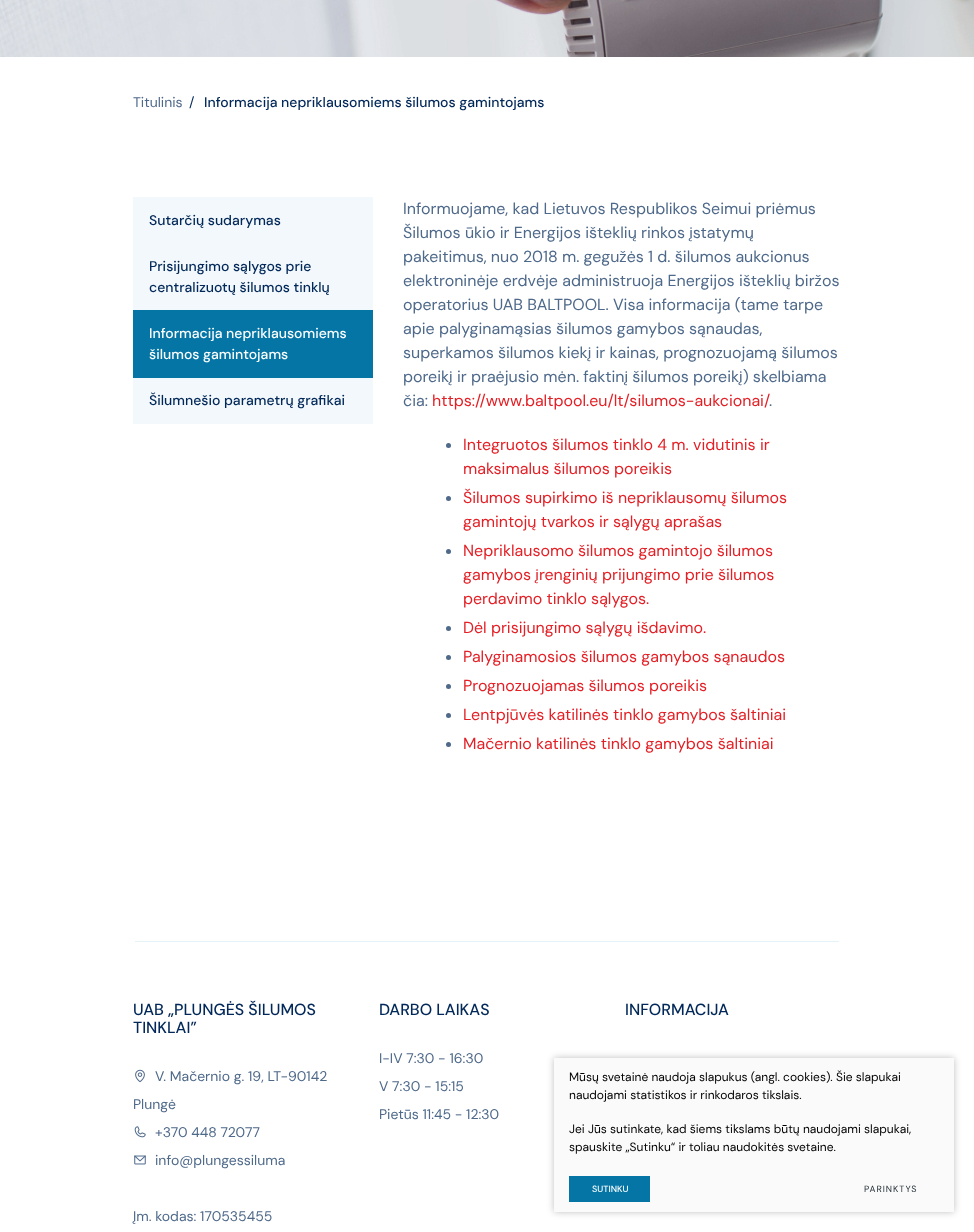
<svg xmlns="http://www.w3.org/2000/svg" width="974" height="1232">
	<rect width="100%" height="100%" fill="#FFFFFF" />
	<image x="0" y="0" width="974" height="57" href="assets/img1.png" />
	<text x="133" y="107" font-family="DM Sans" font-size="14" fill="#4E698A">Titulinis</text>
	<text x="189" y="107" font-family="DM Sans" font-size="14" fill="#022859">/</text>
	<text x="204" y="107" font-family="DM Sans" font-size="14" font-weight="500" fill="#022859">Informacija nepriklausomiems šilumos gamintojams</text>
	<rect x="133" y="197" width="240" height="227" fill="#F2F8FB" />
	<g font-family="DM Sans" font-size="14" font-weight="500" fill="#022859">
		<text x="149" y="225">Sutarčių sudarymas</text>
		<text x="149" y="271">Prisijungimo sąlygos prie</text>
		<text x="149" y="292">centralizuotų šilumos tinklų</text>
	</g>
	<rect x="133" y="310" width="240" height="68" fill="#0475A5" />
	<g font-family="DM Sans" font-size="14" font-weight="500" fill="#FCFEFE">
		<text x="149" y="338">Informacija nepriklausomiems</text>
		<text x="149" y="359">šilumos gamintojams</text>
	</g>
	<text x="149" y="405" font-family="DM Sans" font-size="14" font-weight="500" fill="#022859">Šilumnešio parametrų grafikai</text>
	<g font-family="DM Sans" font-size="16" fill="#4E698A">
		<text x="403" y="214">Informuojame, kad Lietuvos Respublikos Seimui priėmus</text>
		<text x="403" y="238">Šilumos ūkio ir Energijos išteklių rinkos įstatymų</text>
		<text x="403" y="262">pakeitimus, nuo 2018 m. gegužės 1 d. šilumos aukcionus</text>
		<text x="403" y="286">elektroninėje erdvėje administruoja Energijos išteklių biržos</text>
		<text x="403" y="310">operatorius UAB BALTPOOL. Visa informacija (tame tarpe</text>
		<text x="403" y="334">apie palyginamąsias šilumos gamybos sąnaudas,</text>
		<text x="403" y="358">superkamos šilumos kiekį ir kainas, prognozuojamą šilumos</text>
		<text x="403" y="382">poreikį ir praėjusio mėn. faktinį šilumos poreikį) skelbiama</text>
		<text x="403" y="406">čia:</text>
	</g>
	<text x="432" y="406" font-family="DM Sans" font-size="16" fill="#E32026">https://www.baltpool.eu/lt/silumos-aukcionai/</text>
	<text x="769" y="406" font-family="DM Sans" font-size="16" fill="#4E698A">.</text>
	<circle cx="448.5" cy="445.5" r="2.5" fill="#4E698A" />
	<g font-family="DM Sans" font-size="16" fill="#E32026">
		<text x="463" y="450">Integruotos šilumos tinklo 4 m. vidutinis ir</text>
		<text x="463" y="474">maksimalus šilumos poreikis</text>
	</g>
	<circle cx="448.5" cy="498.5" r="2.5" fill="#4E698A" />
	<g font-family="DM Sans" font-size="16" fill="#E32026">
		<text x="463" y="503">Šilumos supirkimo iš nepriklausomų šilumos</text>
		<text x="463" y="527">gamintojų tvarkos ir sąlygų aprašas</text>
	</g>
	<circle cx="448.5" cy="551.5" r="2.5" fill="#4E698A" />
	<g font-family="DM Sans" font-size="16" fill="#E32026">
		<text x="463" y="556">Nepriklausomo šilumos gamintojo šilumos</text>
		<text x="463" y="580">gamybos įrenginių prijungimo prie šilumos</text>
		<text x="463" y="604">perdavimo tinklo sąlygos.</text>
	</g>
	<circle cx="448.5" cy="628.5" r="2.5" fill="#4E698A" />
	<text x="463" y="633" font-family="DM Sans" font-size="16" fill="#E32026">Dėl prisijungimo sąlygų išdavimo.</text>
	<circle cx="448.5" cy="657.5" r="2.5" fill="#4E698A" />
	<text x="463" y="662" font-family="DM Sans" font-size="16" fill="#E32026">Palyginamosios šilumos gamybos sąnaudos</text>
	<circle cx="448.5" cy="686.5" r="2.5" fill="#4E698A" />
	<text x="463" y="691" font-family="DM Sans" font-size="16" fill="#E32026">Prognozuojamas šilumos poreikis</text>
	<circle cx="448.5" cy="715.5" r="2.5" fill="#4E698A" />
	<text x="463" y="720" font-family="DM Sans" font-size="16" fill="#E32026">Lentpjūvės katilinės tinklo gamybos šaltiniai</text>
	<circle cx="448.5" cy="744.5" r="2.5" fill="#4E698A" />
	<text x="463" y="749" font-family="DM Sans" font-size="16" fill="#E32026">Mačernio katilinės tinklo gamybos šaltiniai</text>
	<rect x="135" y="941" width="704" height="1" fill="#E5F2F7" />
	<g font-family="DM Sans" font-size="16" font-weight="500" fill="#022859">
		<text x="133" y="1015">UAB „PLUNGĖS ŠILUMOS</text>
		<text x="133" y="1033">TINKLAI”</text>
	</g>
	<image x="135" y="1069" width="10" height="14" href="assets/img2.png" />
	<g font-family="DM Sans" font-size="14" fill="#4E698A">
		<text x="155" y="1081">V. Mačernio g. 19, LT-90142</text>
		<text x="133" y="1109">Plungė</text>
	</g>
	<image x="134" y="1126" width="12" height="12" href="assets/img3.png" />
	<text x="155" y="1137" font-family="DM Sans" font-size="14" fill="#4E698A">+370 448 72077</text>
	<image x="134" y="1155" width="12" height="10" href="assets/img4.png" />
	<g font-family="DM Sans" font-size="14" fill="#4E698A">
		<text x="155" y="1165">info@plungessiluma</text>
		<text x="133" y="1221">Įm. kodas: 170535455</text>
	</g>
	<text x="379" y="1015" font-family="DM Sans" font-size="16" font-weight="500" fill="#022859">DARBO LAIKAS</text>
	<g font-family="DM Sans" font-size="14" fill="#4E698A">
		<text x="379" y="1063">I-IV 7:30 - 16:30</text>
		<text x="379" y="1091">V 7:30 - 15:15</text>
		<text x="379" y="1119">Pietūs 11:45 - 12:30</text>
	</g>
	<text x="625" y="1015" font-family="DM Sans" font-size="16" font-weight="500" fill="#022859">INFORMACIJA</text>
	<rect x="554" y="1058" width="400" height="154" fill="#000000" fill-opacity="0.25" filter="blur(3.5px)" />
	<rect x="554" y="1058" width="400" height="154" fill="#FAFAFA" />
	<g font-family="DM Sans" font-size="12" fill="#000000">
		<text x="569" y="1081">Mūsų svetainė naudoja slapukus (angl. cookies). Šie slapukai</text>
		<text x="569" y="1099">naudojami statistikos ir rinkodaros tikslais.</text>
		<text x="569" y="1133">Jei Jūs sutinkate, kad šiems tikslams būtų naudojami slapukai,</text>
		<text x="569" y="1151">spauskite „Sutinku“ ir toliau naudokitės svetaine.</text>
	</g>
	<rect x="569" y="1176" width="81" height="26" fill="#0475A5" />
	<text x="592" y="1192" font-family="DM Sans" font-size="9" font-weight="500" fill="#FCFEFE">SUTINKU</text>
	<text x="864" y="1192" font-family="DM Sans" font-size="9" letter-spacing="1" fill="#263238">PARINKTYS</text>
</svg>
